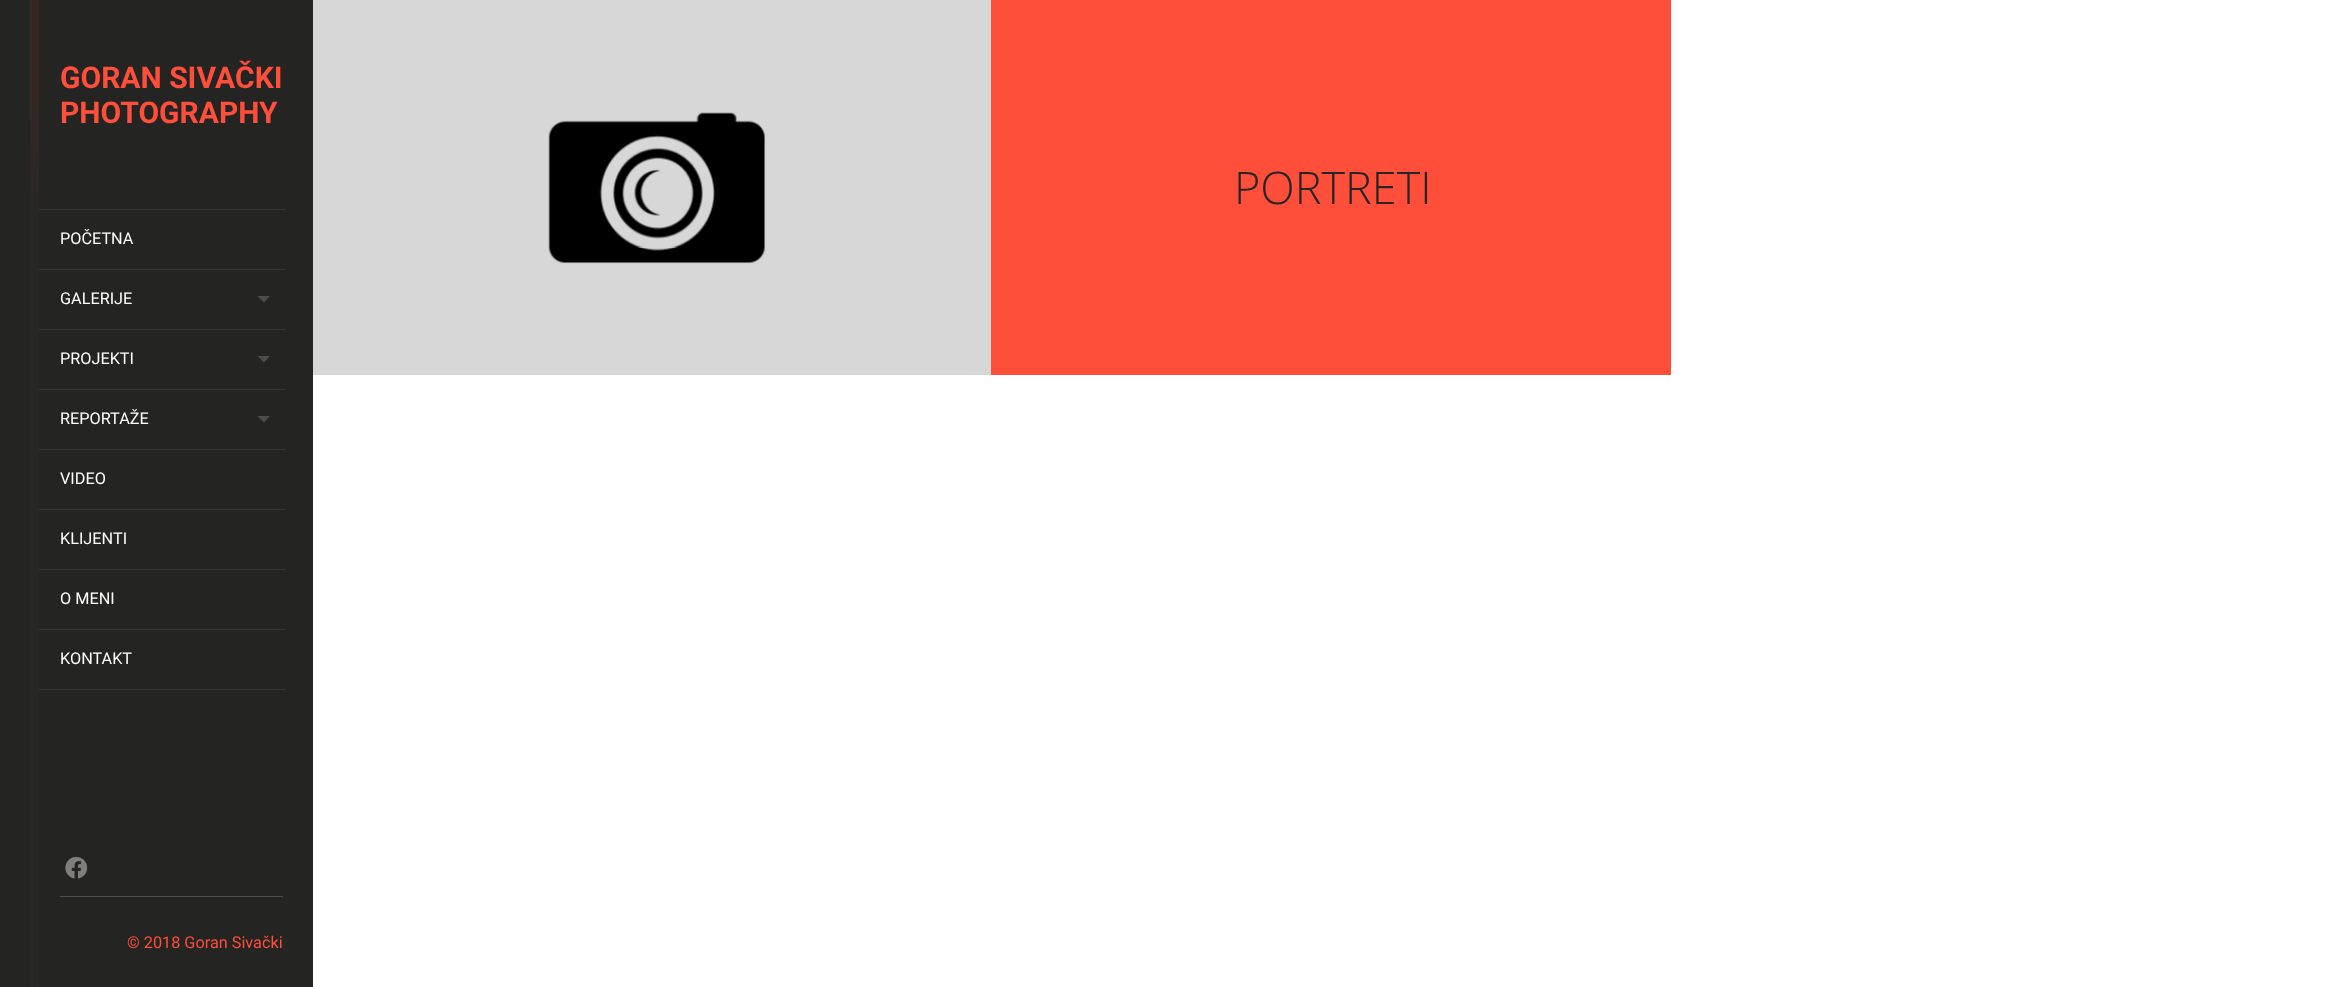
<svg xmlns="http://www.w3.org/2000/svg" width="2350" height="987">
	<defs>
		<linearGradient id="g1" gradientUnits="userSpaceOnUse" x1="31" y1="0" x2="31" y2="210"><stop offset="0.5" stop-color="#362725" /><stop offset="1" stop-color="#272726" /></linearGradient>
	</defs>
	<rect width="100%" height="100%" fill="#FFFFFF" />
	<rect x="0" y="0" width="313" height="987" fill="#242423" />
	<rect x="30" y="210" width="9" height="777" fill="#272726" />
	<rect x="30" y="0" width="9" height="210" fill="url(#g1)" />
	<g font-family="Roboto" font-size="30" font-weight="700" fill="#FF4E3A">
		<text x="60" y="88">GORAN SIVAČKI</text>
		<text x="60" y="123">PHOTOGRAPHY</text>
	</g>
	<rect x="39" y="209" width="246" height="1" fill="#333638" />
	<rect x="39" y="269" width="246" height="1" fill="#333638" />
	<text x="60" y="244" font-family="Roboto" font-size="16.25" fill="#FFFFFF">POČETNA</text>
	<rect x="39" y="329" width="246" height="1" fill="#333638" />
	<text x="60" y="304" font-family="Roboto" font-size="16.25" fill="#FFFFFF">GALERIJE</text>
	<path d="M257.5 296H270L264 302.5Z" fill="#4D4D4D" />
	<rect x="39" y="389" width="246" height="1" fill="#333638" />
	<text x="60" y="364" font-family="Roboto" font-size="16.25" fill="#FFFFFF">PROJEKTI</text>
	<path d="M257.5 356H270L264 362.5Z" fill="#4D4D4D" />
	<rect x="39" y="449" width="246" height="1" fill="#333638" />
	<text x="60" y="424" font-family="Roboto" font-size="16.25" fill="#FFFFFF">REPORTAŽE</text>
	<path d="M257.5 416H270L264 422.5Z" fill="#4D4D4D" />
	<rect x="39" y="509" width="246" height="1" fill="#333638" />
	<text x="60" y="484" font-family="Roboto" font-size="16.25" fill="#FFFFFF">VIDEO</text>
	<rect x="39" y="569" width="246" height="1" fill="#333638" />
	<text x="60" y="544" font-family="Roboto" font-size="16.25" fill="#FFFFFF">KLIJENTI</text>
	<rect x="39" y="629" width="246" height="1" fill="#333638" />
	<text x="60" y="604" font-family="Roboto" font-size="16.25" fill="#FFFFFF">O MENI</text>
	<rect x="39" y="689" width="246" height="1" fill="#333638" />
	<text x="60" y="664" font-family="Roboto" font-size="16.25" fill="#FFFFFF">KONTAKT</text>
	<rect x="60" y="896" width="223" height="1" fill="#4D4D4D" />
	<image x="65" y="856" width="23" height="23" href="assets/img1.png" />
	<text x="127" y="948" font-family="Roboto" font-size="16.25" fill="#FF4E3A">© 2018 Goran Sivački</text>
	<image x="313" y="0" width="678" height="375" href="assets/img2.png" />
	<rect x="991" y="0" width="680" height="375" fill="#FF4E3A" />
	<text x="1234" y="204" font-family="Open Sans" font-size="45" font-weight="300" fill="#262526">PORTRETI</text>
</svg>
